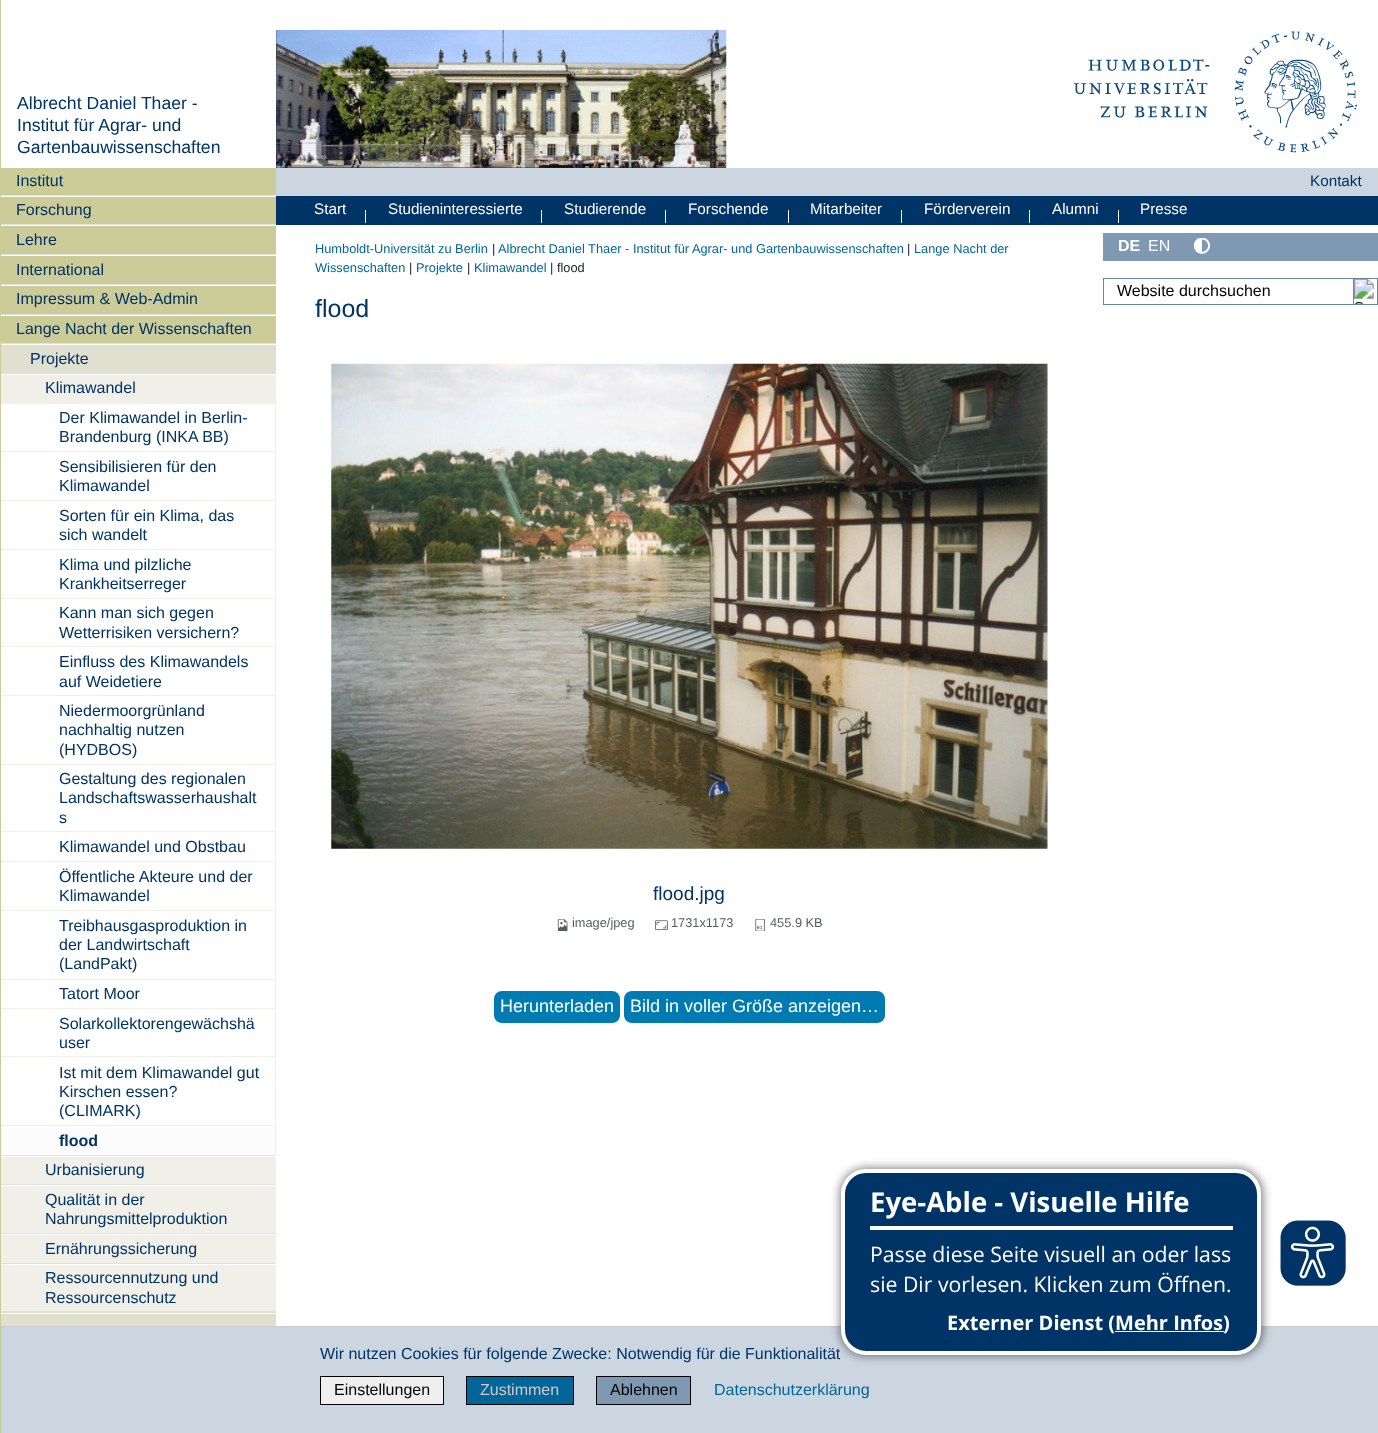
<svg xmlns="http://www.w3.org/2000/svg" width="1378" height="1433">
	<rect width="100%" height="100%" fill="#FFFFFF" />
	<rect x="276" y="30" width="450" height="138" fill="#003366" />
	<image x="276" y="30" width="451" height="138" href="assets/img1.png" />
	<image x="1074" y="31" width="283" height="122" href="assets/img2.png" />
	<rect x="0" y="0" width="1" height="1433" fill="#CCCC99" />
	<g font-family="Liberation Sans" font-size="17.6" fill="#003366">
		<text x="17" y="109">Albrecht Daniel Thaer -</text>
		<text x="17" y="131">Institut für Agrar- und</text>
		<text x="17" y="153">Gartenbauwissenschaften</text>
	</g>
	<rect x="1" y="168" width="275" height="27" fill="#CCCC99" />
	<text x="16" y="186" font-family="Liberation Sans" font-size="16" fill="#003366">Institut</text>
	<rect x="1" y="197" width="275" height="27" fill="#CCCC99" />
	<rect x="1" y="195" width="275" height="1" fill="#DEE2E6" />
	<text x="16" y="215" font-family="Liberation Sans" font-size="16" fill="#003366">Forschung</text>
	<rect x="1" y="226" width="275" height="28" fill="#CCCC99" />
	<rect x="1" y="224" width="275" height="1" fill="#DEE2E6" />
	<text x="16" y="245" font-family="Liberation Sans" font-size="16" fill="#003366">Lehre</text>
	<rect x="1" y="256" width="275" height="28" fill="#CCCC99" />
	<rect x="1" y="254" width="275" height="1" fill="#DEE2E6" />
	<text x="16" y="275" font-family="Liberation Sans" font-size="16" fill="#003366">International</text>
	<rect x="1" y="286" width="275" height="28" fill="#CCCC99" />
	<rect x="1" y="284" width="275" height="1" fill="#DEE2E6" />
	<text x="16" y="304" font-family="Liberation Sans" font-size="16" fill="#003366">Impressum &amp; Web-Admin</text>
	<rect x="1" y="316" width="275" height="27" fill="#CCCC99" />
	<rect x="1" y="314" width="275" height="1" fill="#DEE2E6" />
	<text x="16" y="334" font-family="Liberation Sans" font-size="16" fill="#003366">Lange Nacht der Wissenschaften</text>
	<rect x="1" y="345" width="275" height="28" fill="#E0E0D1" />
	<rect x="1" y="343" width="275" height="1" fill="#DEE2E6" />
	<text x="30" y="364" font-family="Liberation Sans" font-size="16" fill="#003366">Projekte</text>
	<rect x="1" y="375" width="274" height="29" fill="#F0F0E8" />
	<rect x="1" y="373" width="275" height="1" fill="#DEE2E6" />
	<rect x="275" y="373" width="1" height="782" fill="#F0F0E8" />
	<g font-family="Liberation Sans" font-size="16" fill="#003366">
		<text x="45" y="393">Klimawandel</text>
		<text x="59" y="423">Der Klimawandel in Berlin-</text>
		<text x="59" y="442">Brandenburg (INKA BB)</text>
	</g>
	<rect x="1" y="451" width="274" height="1" fill="#F0F0E8" />
	<g font-family="Liberation Sans" font-size="16" fill="#003366">
		<text x="59" y="472">Sensibilisieren für den</text>
		<text x="59" y="491">Klimawandel</text>
	</g>
	<rect x="1" y="500" width="274" height="1" fill="#F0F0E8" />
	<g font-family="Liberation Sans" font-size="16" fill="#003366">
		<text x="59" y="521">Sorten für ein Klima, das</text>
		<text x="59" y="540">sich wandelt</text>
	</g>
	<rect x="1" y="549" width="274" height="1" fill="#F0F0E8" />
	<g font-family="Liberation Sans" font-size="16" fill="#003366">
		<text x="59" y="570">Klima und pilzliche</text>
		<text x="59" y="589">Krankheitserreger</text>
	</g>
	<rect x="1" y="598" width="274" height="1" fill="#F0F0E8" />
	<g font-family="Liberation Sans" font-size="16" fill="#003366">
		<text x="59" y="618">Kann man sich gegen</text>
		<text x="59" y="638">Wetterrisiken versichern?</text>
	</g>
	<rect x="1" y="646" width="274" height="1" fill="#F0F0E8" />
	<g font-family="Liberation Sans" font-size="16" fill="#003366">
		<text x="59" y="667">Einfluss des Klimawandels</text>
		<text x="59" y="687">auf Weidetiere</text>
	</g>
	<rect x="1" y="695" width="274" height="1" fill="#F0F0E8" />
	<g font-family="Liberation Sans" font-size="16" fill="#003366">
		<text x="59" y="716">Niedermoorgrünland</text>
		<text x="59" y="735">nachhaltig nutzen</text>
		<text x="59" y="755">(HYDBOS)</text>
	</g>
	<rect x="1" y="764" width="274" height="1" fill="#F0F0E8" />
	<g font-family="Liberation Sans" font-size="16" fill="#003366">
		<text x="59" y="784">Gestaltung des regionalen</text>
		<text x="59" y="803">Landschaftswasserhaushalt</text>
		<text x="59" y="823">s</text>
	</g>
	<rect x="1" y="831" width="274" height="1" fill="#F0F0E8" />
	<text x="59" y="852" font-family="Liberation Sans" font-size="16" fill="#003366">Klimawandel und Obstbau</text>
	<rect x="1" y="861" width="274" height="1" fill="#F0F0E8" />
	<g font-family="Liberation Sans" font-size="16" fill="#003366">
		<text x="59" y="882">Öffentliche Akteure und der</text>
		<text x="59" y="901">Klimawandel</text>
	</g>
	<rect x="1" y="910" width="274" height="1" fill="#F0F0E8" />
	<g font-family="Liberation Sans" font-size="16" fill="#003366">
		<text x="59" y="931">Treibhausgasproduktion in</text>
		<text x="59" y="950">der Landwirtschaft</text>
		<text x="59" y="969">(LandPakt)</text>
	</g>
	<rect x="1" y="979" width="274" height="1" fill="#F0F0E8" />
	<text x="59" y="999" font-family="Liberation Sans" font-size="16" fill="#003366">Tatort Moor</text>
	<rect x="1" y="1008" width="274" height="1" fill="#F0F0E8" />
	<g font-family="Liberation Sans" font-size="16" fill="#003366">
		<text x="59" y="1029">Solarkollektorengewächshä</text>
		<text x="59" y="1048">user</text>
	</g>
	<rect x="1" y="1056" width="274" height="1" fill="#F0F0E8" />
	<g font-family="Liberation Sans" font-size="16" fill="#003366">
		<text x="59" y="1078">Ist mit dem Klimawandel gut</text>
		<text x="59" y="1097">Kirschen essen?</text>
		<text x="59" y="1116">(CLIMARK)</text>
	</g>
	<rect x="1" y="1125" width="274" height="1" fill="#F0F0E8" />
	<rect x="1" y="1127" width="274" height="28" fill="#FCFCFD" />
	<text x="59" y="1146" font-family="Liberation Sans" font-size="16" font-weight="700" fill="#003366">flood</text>
	<rect x="1" y="1157" width="274" height="27" fill="#F0F0E8" />
	<rect x="1" y="1155" width="275" height="1" fill="#DEE2E6" />
	<rect x="275" y="1155" width="1" height="29" fill="#F0F0E8" />
	<text x="45" y="1175" font-family="Liberation Sans" font-size="16" fill="#003366">Urbanisierung</text>
	<rect x="1" y="1186" width="274" height="47" fill="#F0F0E8" />
	<rect x="1" y="1184" width="275" height="1" fill="#DEE2E6" />
	<rect x="275" y="1184" width="1" height="49" fill="#F0F0E8" />
	<g font-family="Liberation Sans" font-size="16" fill="#003366">
		<text x="45" y="1205">Qualität in der</text>
		<text x="45" y="1224">Nahrungsmittelproduktion</text>
	</g>
	<rect x="1" y="1235" width="274" height="28" fill="#F0F0E8" />
	<rect x="1" y="1233" width="275" height="1" fill="#DEE2E6" />
	<rect x="275" y="1233" width="1" height="30" fill="#F0F0E8" />
	<text x="45" y="1254" font-family="Liberation Sans" font-size="16" fill="#003366">Ernährungssicherung</text>
	<rect x="1" y="1265" width="274" height="46" fill="#F0F0E8" />
	<rect x="1" y="1263" width="275" height="1" fill="#DEE2E6" />
	<rect x="275" y="1263" width="1" height="48" fill="#F0F0E8" />
	<g font-family="Liberation Sans" font-size="16" fill="#003366">
		<text x="45" y="1283">Ressourcennutzung und</text>
		<text x="45" y="1303">Ressourcenschutz</text>
	</g>
	<rect x="1" y="1312" width="275" height="14" fill="#E0E0D1" />
	<rect x="1" y="1311" width="275" height="1" fill="#DEE2E6" />
	<rect x="1" y="1313" width="275" height="1" fill="#FFFFFF" />
	<rect x="276" y="168" width="1102" height="28" fill="#CCD6E0" />
	<text x="1310" y="186" font-family="Liberation Sans" font-size="15.25" fill="#003366">Kontakt</text>
	<rect x="276" y="196" width="1102" height="29" fill="#003366" />
	<text x="314" y="214" font-family="Liberation Sans" font-size="15.25" fill="#FFFFFF">Start</text>
	<rect x="365" y="210" width="1" height="13" fill="#FFFFFF" />
	<text x="388" y="214" font-family="Liberation Sans" font-size="15.25" fill="#FFFFFF">Studieninteressierte</text>
	<rect x="541" y="210" width="1" height="13" fill="#FFFFFF" />
	<text x="564" y="214" font-family="Liberation Sans" font-size="15.25" fill="#FFFFFF">Studierende</text>
	<rect x="665" y="210" width="1" height="13" fill="#FFFFFF" />
	<text x="688" y="214" font-family="Liberation Sans" font-size="15.25" fill="#FFFFFF">Forschende</text>
	<rect x="788" y="210" width="1" height="13" fill="#FFFFFF" />
	<text x="810" y="214" font-family="Liberation Sans" font-size="15.25" fill="#FFFFFF">Mitarbeiter</text>
	<rect x="901" y="210" width="1" height="13" fill="#FFFFFF" />
	<text x="924" y="214" font-family="Liberation Sans" font-size="15.25" fill="#FFFFFF">Förderverein</text>
	<rect x="1029" y="210" width="1" height="13" fill="#FFFFFF" />
	<text x="1052" y="214" font-family="Liberation Sans" font-size="15.25" fill="#FFFFFF">Alumni</text>
	<rect x="1118" y="210" width="1" height="13" fill="#FFFFFF" />
	<text x="1140" y="214" font-family="Liberation Sans" font-size="15.25" fill="#FFFFFF">Presse</text>
	<text x="315" y="253" font-family="Liberation Sans" font-size="12.8" fill="#006699">Humboldt-Universität zu Berlin</text>
	<text x="492" y="253" font-family="Liberation Sans" font-size="12.8" fill="#212529">|</text>
	<text x="498" y="253" font-family="Liberation Sans" font-size="12.8" fill="#006699">Albrecht Daniel Thaer - Institut für Agrar- und Gartenbauwissenschaften</text>
	<text x="907" y="253" font-family="Liberation Sans" font-size="12.8" fill="#212529">|</text>
	<g font-family="Liberation Sans" font-size="12.8" fill="#006699">
		<text x="914" y="253">Lange Nacht der</text>
		<text x="315" y="272">Wissenschaften</text>
	</g>
	<text x="409" y="272" font-family="Liberation Sans" font-size="12.8" fill="#212529">|</text>
	<text x="416" y="272" font-family="Liberation Sans" font-size="12.8" fill="#006699">Projekte</text>
	<text x="467" y="272" font-family="Liberation Sans" font-size="12.8" fill="#212529">|</text>
	<text x="474" y="272" font-family="Liberation Sans" font-size="12.8" fill="#006699">Klimawandel</text>
	<text x="550" y="272" font-family="Liberation Sans" font-size="12.8" fill="#212529">| flood</text>
	<text x="315" y="317" font-family="Liberation Sans" font-size="25" fill="#003366">flood</text>
	<image x="331" y="363" width="717" height="486" href="assets/img3.png" />
	<text x="653" y="900" font-family="Liberation Sans" font-size="19" fill="#003366">flood.jpg</text>
	<image x="557" y="919" width="11" height="12" href="assets/img4.png" />
	<text x="572" y="927" font-family="Liberation Sans" font-size="12.8" fill="#595C5F">image/jpeg</text>
	<image x="655" y="920" width="13" height="10" href="assets/img5.png" />
	<text x="671" y="927" font-family="Liberation Sans" font-size="12.8" fill="#595C5F">1731x1173</text>
	<image x="755" y="919" width="10" height="12" href="assets/img6.png" />
	<text x="770" y="927" font-family="Liberation Sans" font-size="12.8" fill="#595C5F">455.9 KB</text>
	<rect x="494" y="991" width="126" height="32" rx="8" fill="#007BB1" />
	<text x="500" y="1012" font-family="Liberation Sans" font-size="18" fill="#FFFFFF">Herunterladen</text>
	<rect x="624" y="991" width="261" height="32" rx="8" fill="#007BB1" />
	<text x="630" y="1012" font-family="Liberation Sans" font-size="18" fill="#FFFFFF">Bild in voller Größe anzeigen…</text>
	<rect x="1103" y="233" width="275" height="28" fill="#8099B2" />
	<text x="1118" y="251" font-family="Liberation Sans" font-size="16" font-weight="700" fill="#FFFFFF">DE</text>
	<text x="1148" y="251" font-family="Liberation Sans" font-size="16" fill="#FFFFFF">EN</text>
	<image x="1194" y="238" width="16" height="16" href="assets/img7.png" />
	<rect x="1103.5" y="278.5" width="274" height="26" fill="none" stroke="#6685A3" />
	<text x="1117" y="296" font-family="Liberation Sans" font-size="16" fill="#000000">Website durchsuchen</text>
	<rect x="1353.5" y="278.5" width="24" height="26" fill="none" stroke="#6685A3" />
	<image x="1354" y="279" width="20" height="25" href="assets/img8.png" />
	<rect x="1.5" y="1326.5" width="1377" height="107" fill="#CCD6E0" stroke="#CCCCCC" />
	<rect x="840" y="1168" width="423" height="188" rx="26" fill="#000000" fill-opacity="0.5" filter="blur(5px)" />
	<rect x="843" y="1171" width="416" height="182" rx="23" fill="#003366" stroke="#FFFFFF" stroke-width="4" />
	<rect x="870" y="1226" width="363" height="4" fill="#FFFFFF" />
	<text x="870" y="1212" font-family="Open Sans" font-size="27.5" font-weight="700" fill="#FFFFFF">Eye-Able - Visuelle Hilfe</text>
	<g font-family="Open Sans" font-size="21.25" fill="#FFFFFF">
		<text x="870" y="1262">Passe diese Seite visuell an oder lass</text>
		<text x="870" y="1292">sie Dir vorlesen. Klicken zum Öffnen.</text>
	</g>
	<text x="947" y="1330" font-family="Open Sans" font-size="20" font-weight="700" fill="#FFFFFF">Externer Dienst (Mehr Infos</text>
	<rect x="1115" y="1331" width="109" height="1" fill="#FFFFFF" />
	<text x="1223" y="1330" font-family="Open Sans" font-size="20" font-weight="700" fill="#FFFFFF">)</text>
	<image x="1280" y="1220" width="66" height="66" href="assets/img9.png" />
	<text x="320" y="1359" font-family="Liberation Sans" font-size="16" fill="#003366">Wir nutzen Cookies für folgende Zwecke: Notwendig für die Funktionalität</text>
	<rect x="320.5" y="1376.5" width="123" height="28" fill="#EFEFEF" stroke="#000000" />
	<text x="334" y="1395" font-family="Liberation Sans" font-size="16" fill="#000000">Einstellungen</text>
	<rect x="466.5" y="1376.5" width="107" height="28" fill="#006699" stroke="#000000" />
	<text x="480" y="1395" font-family="Liberation Sans" font-size="16" fill="#D5C7C7">Zustimmen</text>
	<rect x="596.5" y="1376.5" width="94" height="28" fill="#8099B2" stroke="#000000" />
	<text x="610" y="1395" font-family="Liberation Sans" font-size="16" fill="#000000">Ablehnen</text>
	<text x="714" y="1395" font-family="Liberation Sans" font-size="16" fill="#006699">Datenschutzerklärung</text>
</svg>
